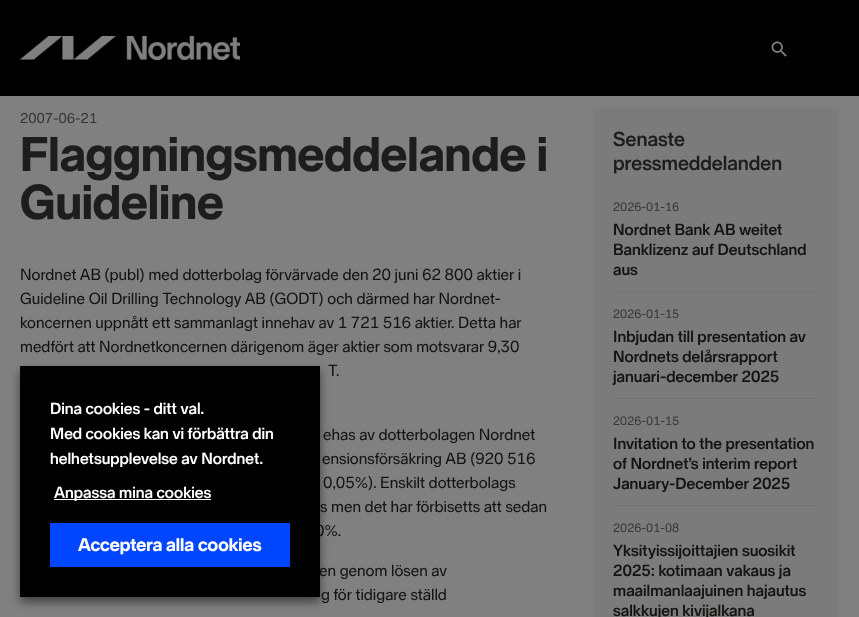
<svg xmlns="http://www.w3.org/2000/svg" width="859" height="617">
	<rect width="100%" height="100%" fill="#808080" />
	<rect x="0" y="0" width="859" height="96" fill="#000000" />
	<image x="20" y="36" width="220" height="24" href="assets/img1.png" />
	<image x="771" y="41" width="16" height="16" href="assets/img2.png" />
	<text x="20" y="123" font-family="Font" font-size="14" fill="#373735">2007-06-21</text>
	<g font-family="Font" font-size="48" font-weight="800" fill="#1D1D1D">
		<text x="20" y="171">Flaggningsmeddelande i</text>
		<text x="20" y="219">Guideline</text>
	</g>
	<g font-family="Font" font-size="16" fill="#141412">
		<text x="20" y="280">Nordnet AB (publ) med dotterbolag förvärvade den 20 juni 62 800 aktier i</text>
		<text x="20" y="304">Guideline Oil Drilling Technology AB (GODT) och därmed har Nordnet-</text>
		<text x="20" y="328">koncernen uppnått ett sammanlagt innehav av 1 721 516 aktier. Detta har</text>
		<text x="20" y="352">medfört att Nordnetkoncernen därigenom äger aktier som motsvarar 9,30</text>
		<text x="328" y="376">T.</text>
		<text x="323" y="440">ehas av dotterbolagen Nordnet</text>
		<text x="322" y="464">ensionsförsäkring AB (920 516</text>
		<text x="323" y="488">0,05%). Enskilt dotterbolags</text>
		<text x="320" y="512">s men det har förbisetts att sedan</text>
		<text x="315" y="536">0%.</text>
		<text x="319" y="576">en genom lösen av</text>
		<text x="321" y="600">g för tidigare ställd</text>
	</g>
	<rect x="593" y="107" width="246" height="510" fill="#7B7B7B" />
	<g font-family="Font" font-size="20" font-weight="700" fill="#1D1D1D">
		<text x="613" y="146">Senaste</text>
		<text x="613" y="170">pressmeddelanden</text>
	</g>
	<rect x="613" y="291" width="206" height="1" fill="#737373" />
	<text x="613" y="211" font-family="Font" font-size="12" fill="#373735">2026-01-16</text>
	<g font-family="Font" font-size="16" font-weight="700" fill="#141412">
		<text x="613" y="235">Nordnet Bank AB weitet</text>
		<text x="613" y="255">Banklizenz auf Deutschland</text>
		<text x="613" y="275">aus</text>
	</g>
	<rect x="613" y="398" width="206" height="1" fill="#737373" />
	<text x="613" y="318" font-family="Font" font-size="12" fill="#373735">2026-01-15</text>
	<g font-family="Font" font-size="16" font-weight="700" fill="#141412">
		<text x="613" y="342">Inbjudan till presentation av</text>
		<text x="613" y="362">Nordnets delårsrapport</text>
		<text x="613" y="382">januari-december 2025</text>
	</g>
	<rect x="613" y="505" width="206" height="1" fill="#737373" />
	<text x="613" y="425" font-family="Font" font-size="12" fill="#373735">2026-01-15</text>
	<g font-family="Font" font-size="16" font-weight="700" fill="#141412">
		<text x="613" y="449">Invitation to the presentation</text>
		<text x="613" y="469">of Nordnet’s interim report</text>
		<text x="613" y="489">January-December 2025</text>
	</g>
	<text x="613" y="532" font-family="Font" font-size="12" fill="#373735">2026-01-08</text>
	<g font-family="Font" font-size="16" font-weight="700" fill="#141412">
		<text x="613" y="556">Yksityissijoittajien suosikit</text>
		<text x="613" y="576">2025: kotimaan vakaus ja</text>
		<text x="613" y="596">maailmanlaajuinen hajautus</text>
		<text x="613" y="616">salkkujen kivijalkana</text>
	</g>
	<rect x="20" y="371" width="300" height="231" fill="#000000" fill-opacity="0.5" filter="blur(5px)" />
	<rect x="20" y="366" width="300" height="231" fill="#010101" />
	<g font-family="Font" font-size="16" font-weight="700" fill="#FFFFFF">
		<text x="50" y="414">Dina cookies - ditt val.</text>
		<text x="50" y="439">Med cookies kan vi förbättra din</text>
		<text x="50" y="464">helhetsupplevelse av Nordnet.</text>
	</g>
	<rect x="54" y="499" width="157" height="1" fill="#FFFFFF" />
	<text x="54" y="498" font-family="Font" font-size="16" font-weight="700" fill="#FFFFFF">Anpassa mina cookies</text>
	<rect x="50" y="523" width="240" height="44" fill="#0046FF" />
	<text x="78" y="551" font-family="Font" font-size="18" font-weight="800" fill="#FFFFFF">Acceptera alla cookies</text>
</svg>
